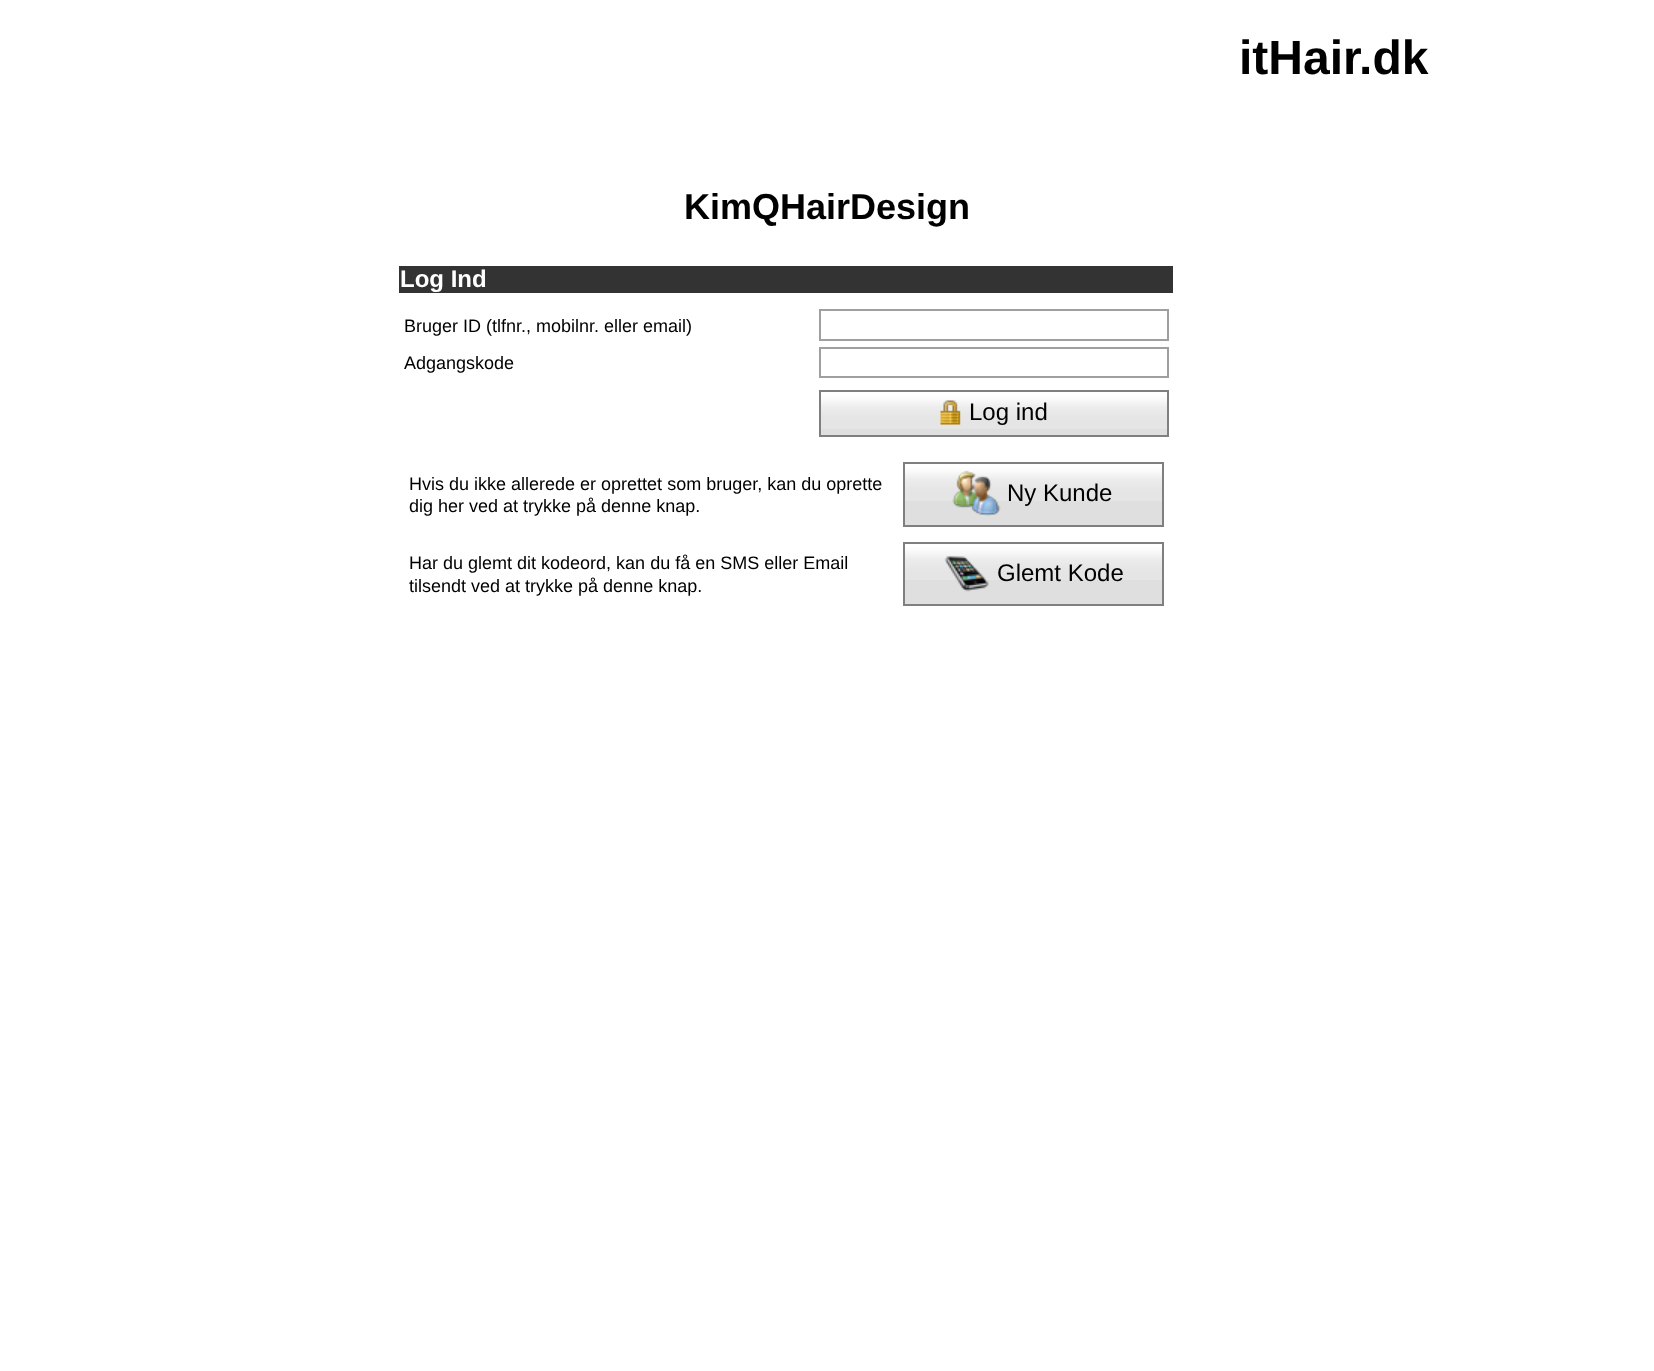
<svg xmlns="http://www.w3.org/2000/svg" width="1654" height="1371">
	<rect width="100%" height="100%" fill="#FFFFFF" />
	<text x="1239" y="74" font-family="Liberation Sans" font-size="48" font-weight="700" fill="#000000">itHair.dk</text>
	<text x="684" y="219" font-family="Liberation Sans" font-size="36" font-weight="700" fill="#000000">KimQHairDesign</text>
	<rect x="399" y="266" width="774" height="27" fill="#333333" />
	<text x="400" y="287" font-family="Liberation Sans" font-size="24" font-weight="700" fill="#FFFFFF">Log Ind</text>
	<text x="404" y="332" font-family="Liberation Sans" font-size="18" fill="#000000">Bruger ID (tlfnr., mobilnr. eller email)</text>
	<rect x="820" y="310" width="348" height="30" fill="none" stroke="#9F9F9F" stroke-width="2" />
	<text x="404" y="369" font-family="Liberation Sans" font-size="18" fill="#000000">Adgangskode</text>
	<rect x="820" y="348" width="348" height="29" fill="none" stroke="#9F9F9F" stroke-width="2" />
	<rect x="821" y="429" width="346" height="6" fill="#E0DFDF" />
	<image x="821" y="392" width="346" height="37" href="assets/img1.png" />
	<rect x="820" y="391" width="348" height="45" fill="none" stroke="#7F7F7F" stroke-width="2" />
	<image x="940" y="400" width="21" height="25" href="assets/img2.png" />
	<text x="969" y="420" font-family="Liberation Sans" font-size="24" fill="#000000">Log ind</text>
	<g font-family="Liberation Sans" font-size="18" fill="#000000">
		<text x="409" y="490">Hvis du ikke allerede er oprettet som bruger, kan du oprette</text>
		<text x="409" y="512">dig her ved at trykke på denne knap.</text>
	</g>
	<rect x="905" y="501" width="257" height="24" fill="#E0DFDF" />
	<image x="905" y="464" width="257" height="37" href="assets/img3.png" />
	<rect x="904" y="463" width="259" height="63" fill="none" stroke="#7F7F7F" stroke-width="2" />
	<image x="952" y="470" width="49" height="46" href="assets/img4.png" />
	<text x="1007" y="501" font-family="Liberation Sans" font-size="24" fill="#000000">Ny Kunde</text>
	<g font-family="Liberation Sans" font-size="18" fill="#000000">
		<text x="409" y="569">Har du glemt dit kodeord, kan du få en SMS eller Email</text>
		<text x="409" y="592">tilsendt ved at trykke på denne knap.</text>
	</g>
	<rect x="905" y="580" width="257" height="24" fill="#E0DFDF" />
	<image x="905" y="544" width="257" height="36" href="assets/img5.png" />
	<rect x="904" y="543" width="259" height="62" fill="none" stroke="#7F7F7F" stroke-width="2" />
	<image x="944" y="556" width="45" height="36" href="assets/img6.png" />
	<text x="997" y="581" font-family="Liberation Sans" font-size="24" fill="#000000">Glemt Kode</text>
</svg>
